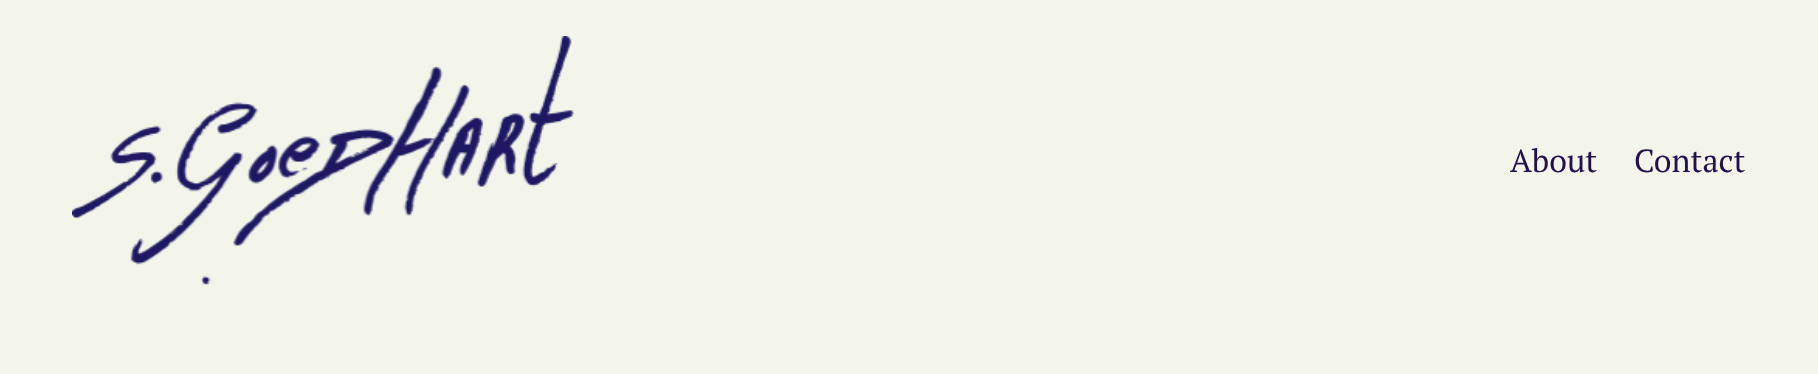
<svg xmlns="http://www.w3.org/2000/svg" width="1818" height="374">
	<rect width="100%" height="100%" fill="#F3F5EB" />
	<image x="72" y="36" width="502" height="249" href="assets/img1.png" />
	<g font-family="PT Serif" font-size="32" fill="#23104D">
		<text x="1510" y="172">About</text>
		<text x="1634" y="172">Contact</text>
	</g>
</svg>
